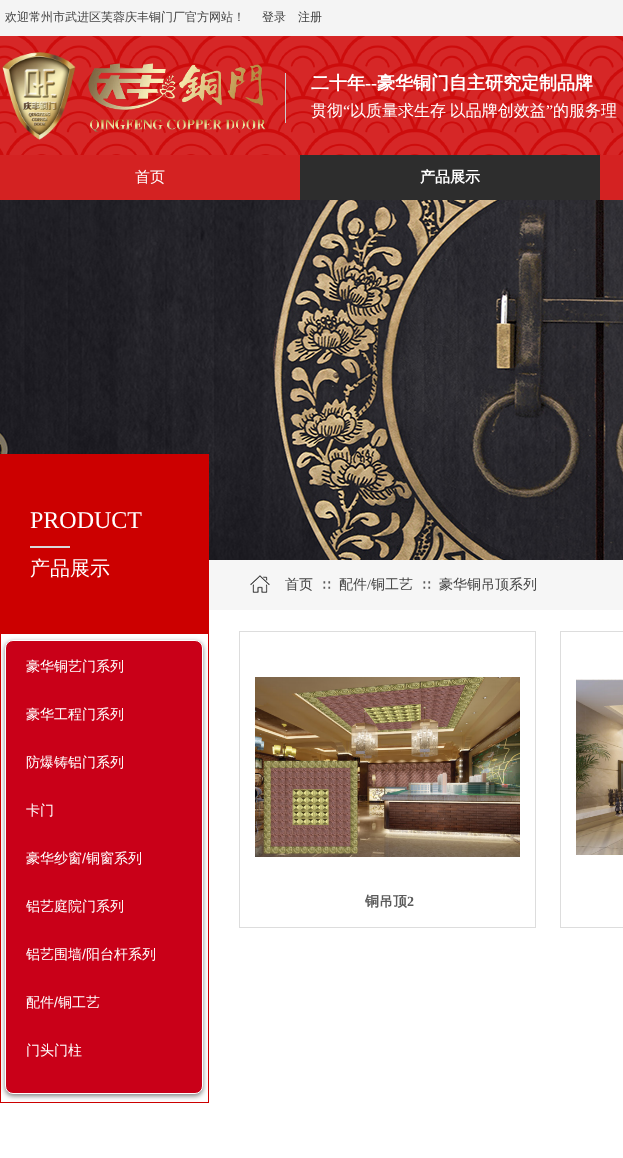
<svg xmlns="http://www.w3.org/2000/svg" width="623" height="1158">
	<rect width="100%" height="100%" fill="#FFFFFF" />
	<rect x="0" y="0" width="623" height="36" fill="#F4F4F4" />
	<g font-family="WenQuanYi Zen Hei" font-size="12" font-weight="500" fill="#434343">
		<text x="5" y="21">欢迎常州市武进区芙蓉庆丰铜门厂官方网站！</text>
		<text x="262" y="21">登录</text>
		<text x="298" y="21">注册</text>
	</g>
	<image x="0" y="36" width="623" height="119" href="assets/img1.png" />
	<image x="2" y="52" width="74" height="88" href="assets/img2.png" />
	<image x="88" y="63" width="178" height="69" href="assets/img3.png" />
	<rect x="285" y="73" width="1" height="50" fill="#CCCCCC" />
	<text x="311" y="89" font-family="WenQuanYi Zen Hei" font-size="18" font-weight="700" fill="#FFFFFF">二十年</text>
	<text x="365" y="89" font-family="Liberation Serif" font-size="18" font-weight="700" fill="#FFFFFF">--</text>
	<text x="377" y="89" font-family="WenQuanYi Zen Hei" font-size="18" font-weight="700" fill="#FFFFFF">豪华铜门自主研究定制品牌</text>
	<text x="311" y="116" font-family="WenQuanYi Zen Hei" font-size="16" font-weight="500" fill="#FFFFFF">贯彻</text>
	<text x="343" y="116" font-family="Liberation Serif" font-size="16" fill="#FFFFFF">“</text>
	<text x="350" y="116" word-spacing="-1" font-family="WenQuanYi Zen Hei" font-size="16" font-weight="500" fill="#FFFFFF">以质量求生存 以品牌创效益</text>
	<text x="546" y="116" font-family="Liberation Serif" font-size="16" fill="#FFFFFF">”</text>
	<text x="553" y="116" font-family="WenQuanYi Zen Hei" font-size="16" font-weight="500" fill="#FFFFFF">的服务理</text>
	<rect x="0" y="155" width="623" height="45" fill="#D42222" />
	<text x="135" y="182" font-family="WenQuanYi Zen Hei" font-size="15" font-weight="500" fill="#FFFFFF">首页</text>
	<rect x="300" y="155" width="300" height="45" fill="#2D2D2D" />
	<text x="420" y="182" font-family="WenQuanYi Zen Hei" font-size="15" font-weight="700" fill="#FFFFFF">产品展示</text>
	<image x="0" y="200" width="623" height="360" href="assets/img4.png" />
	<rect x="208" y="454" width="1" height="649" fill="#CC0000" />
	<rect x="0" y="1102" width="209" height="1" fill="#CC0000" />
	<rect x="0" y="454" width="1" height="649" fill="#CC0000" />
	<rect x="1" y="454" width="207" height="180" fill="#CC0000" />
	<text x="30" y="528" font-family="Liberation Serif" font-size="24" fill="#FFFFFF">PRODUCT</text>
	<rect x="30" y="546" width="40" height="2" fill="#D9D9D9" />
	<text x="30" y="575" font-family="WenQuanYi Zen Hei" font-size="20" font-weight="500" fill="#FFFFFF">产品展示</text>
	<rect x="5" y="642" width="198" height="454" rx="8" fill="#000000" fill-opacity="0.5" filter="blur(2.5px)" />
	<rect x="5.5" y="640.5" width="197" height="453" rx="7.5" fill="#C90018" stroke="#FFFFFF" />
	<g font-family="WenQuanYi Zen Hei" font-size="14" font-weight="500" fill="#FFFFFF">
		<text x="26" y="671">豪华铜艺门系列</text>
		<text x="26" y="719">豪华工程门系列</text>
		<text x="26" y="767">防爆铸铝门系列</text>
		<text x="26" y="815">卡门</text>
		<text x="26" y="863">豪华纱窗</text>
	</g>
	<text x="82" y="863" font-family="Liberation Sans" font-size="14" fill="#FFFFFF">/</text>
	<g font-family="WenQuanYi Zen Hei" font-size="14" font-weight="500" fill="#FFFFFF">
		<text x="86" y="863">铜窗系列</text>
		<text x="26" y="911">铝艺庭院门系列</text>
		<text x="26" y="959">铝艺围墙</text>
	</g>
	<text x="82" y="959" font-family="Liberation Sans" font-size="14" fill="#FFFFFF">/</text>
	<g font-family="WenQuanYi Zen Hei" font-size="14" font-weight="500" fill="#FFFFFF">
		<text x="86" y="959">阳台杆系列</text>
		<text x="26" y="1007">配件</text>
	</g>
	<text x="54" y="1007" font-family="Liberation Sans" font-size="14" fill="#FFFFFF">/</text>
	<g font-family="WenQuanYi Zen Hei" font-size="14" font-weight="500" fill="#FFFFFF">
		<text x="58" y="1007">铜工艺</text>
		<text x="26" y="1055">门头门柱</text>
	</g>
	<rect x="209" y="560" width="414" height="50" fill="#F6F6F6" />
	<image x="250" y="575" width="20" height="18" href="assets/img5.png" />
	<text x="285" y="589" font-family="WenQuanYi Zen Hei" font-size="14" font-weight="500" fill="#434343">首页</text>
	<text x="321" y="589" font-family="WenQuanYi Zen Hei" font-size="12" font-weight="500" fill="#5A5A5A">∷</text>
	<text x="339" y="589" font-family="WenQuanYi Zen Hei" font-size="14" font-weight="500" fill="#434343">配件</text>
	<text x="367" y="589" font-family="Liberation Serif" font-size="14" fill="#434343">/</text>
	<text x="371" y="589" font-family="WenQuanYi Zen Hei" font-size="14" font-weight="500" fill="#434343">铜工艺</text>
	<text x="421" y="589" font-family="WenQuanYi Zen Hei" font-size="12" font-weight="500" fill="#5A5A5A">∷</text>
	<text x="439" y="589" font-family="WenQuanYi Zen Hei" font-size="14" font-weight="500" fill="#434343">豪华铜吊顶系列</text>
	<rect x="239.5" y="631.5" width="296" height="296" fill="none" stroke="#DDDDDD" />
	<image x="255" y="677" width="265" height="180" href="assets/img6.png" />
	<text x="365" y="906" font-family="WenQuanYi Zen Hei" font-size="14" font-weight="700" fill="#5A5A5A">铜吊顶</text>
	<text x="407" y="906" font-family="Liberation Serif" font-size="14" font-weight="700" fill="#5A5A5A">2</text>
	<rect x="560.5" y="631.5" width="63" height="296" fill="none" stroke="#DDDDDD" />
	<image x="576" y="679" width="47" height="176" href="assets/img7.png" />
</svg>
